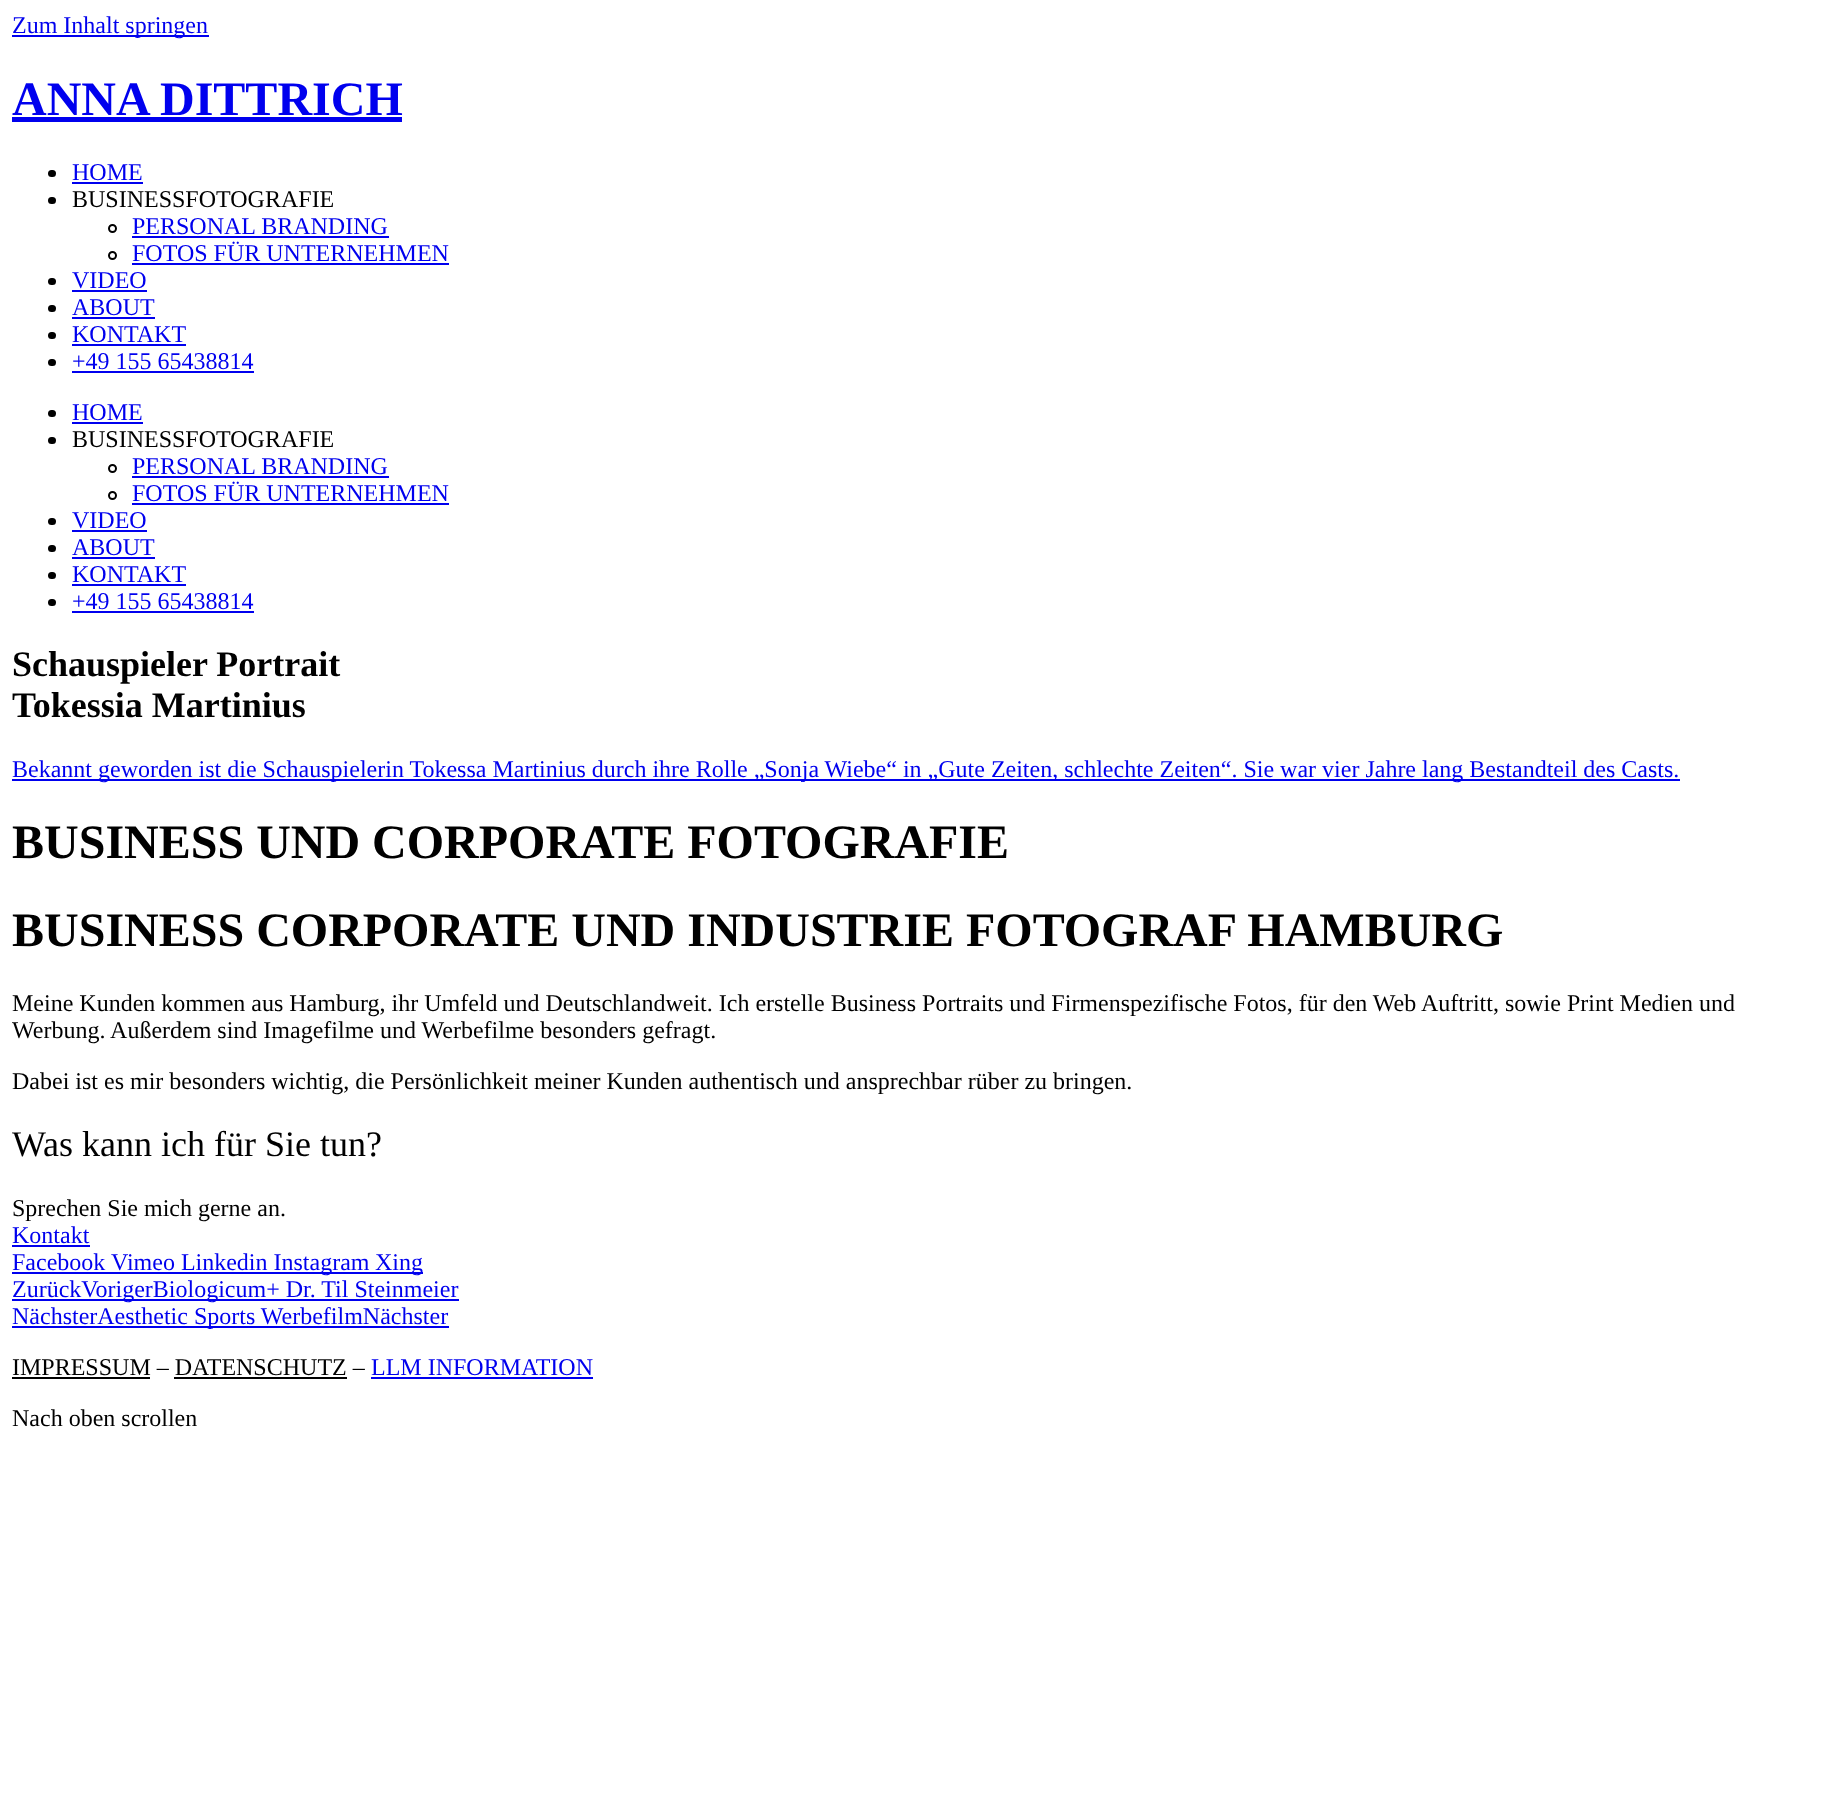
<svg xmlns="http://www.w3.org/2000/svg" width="1834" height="1817">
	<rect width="100%" height="100%" fill="#FFFFFF" />
	<rect x="12" y="35" width="197" height="2" fill="#0000EE" />
	<text x="12" y="33" font-family="Liberation Serif" font-size="24" fill="#0000EE">Zum Inhalt springen</text>
	<text x="12" y="115" font-family="Liberation Serif" font-size="48" font-weight="700" fill="#0000EE">ANNA DITTRICH</text>
	<rect x="12" y="117" width="390" height="5" fill="#0000EE" />
	<rect x="48" y="170" width="8" height="7" rx="3.5" fill="#000000" />
	<text x="72" y="180" font-family="Liberation Serif" font-size="24" fill="#0000EE">HOME</text>
	<rect x="72" y="182" width="71" height="2" fill="#0000EE" />
	<rect x="48" y="197" width="8" height="7" rx="3.5" fill="#000000" />
	<text x="72" y="207" font-family="Liberation Serif" font-size="24" fill="#000000">BUSINESSFOTOGRAFIE</text>
	<circle cx="112.5" cy="228.5" r="3.5" fill="none" stroke="#000000" stroke-width="2" />
	<text x="132" y="234" font-family="Liberation Serif" font-size="24" fill="#0000EE">PERSONAL BRANDING</text>
	<rect x="132" y="236" width="257" height="2" fill="#0000EE" />
	<circle cx="112.5" cy="255.5" r="3.5" fill="none" stroke="#000000" stroke-width="2" />
	<text x="132" y="261" font-family="Liberation Serif" font-size="24" fill="#0000EE">FOTOS FÜR UNTERNEHMEN</text>
	<rect x="132" y="263" width="317" height="2" fill="#0000EE" />
	<rect x="48" y="278" width="8" height="7" rx="3.5" fill="#000000" />
	<text x="72" y="288" font-family="Liberation Serif" font-size="24" fill="#0000EE">VIDEO</text>
	<rect x="72" y="290" width="75" height="2" fill="#0000EE" />
	<rect x="48" y="305" width="8" height="7" rx="3.5" fill="#000000" />
	<text x="72" y="315" font-family="Liberation Serif" font-size="24" fill="#0000EE">ABOUT</text>
	<rect x="72" y="317" width="83" height="2" fill="#0000EE" />
	<rect x="48" y="332" width="8" height="7" rx="3.5" fill="#000000" />
	<text x="72" y="342" font-family="Liberation Serif" font-size="24" fill="#0000EE">KONTAKT</text>
	<rect x="72" y="344" width="114" height="2" fill="#0000EE" />
	<rect x="48" y="359" width="8" height="7" rx="3.5" fill="#000000" />
	<text x="72" y="369" font-family="Liberation Serif" font-size="24" fill="#0000EE">+49 155 65438814</text>
	<rect x="72" y="371" width="182" height="2" fill="#0000EE" />
	<rect x="48" y="410" width="8" height="7" rx="3.5" fill="#000000" />
	<text x="72" y="420" font-family="Liberation Serif" font-size="24" fill="#0000EE">HOME</text>
	<rect x="72" y="422" width="71" height="2" fill="#0000EE" />
	<rect x="48" y="437" width="8" height="7" rx="3.5" fill="#000000" />
	<text x="72" y="447" font-family="Liberation Serif" font-size="24" fill="#000000">BUSINESSFOTOGRAFIE</text>
	<circle cx="112.5" cy="468.5" r="3.5" fill="none" stroke="#000000" stroke-width="2" />
	<text x="132" y="474" font-family="Liberation Serif" font-size="24" fill="#0000EE">PERSONAL BRANDING</text>
	<rect x="132" y="476" width="257" height="2" fill="#0000EE" />
	<circle cx="112.5" cy="495.5" r="3.5" fill="none" stroke="#000000" stroke-width="2" />
	<text x="132" y="501" font-family="Liberation Serif" font-size="24" fill="#0000EE">FOTOS FÜR UNTERNEHMEN</text>
	<rect x="132" y="503" width="317" height="2" fill="#0000EE" />
	<rect x="48" y="518" width="8" height="7" rx="3.5" fill="#000000" />
	<text x="72" y="528" font-family="Liberation Serif" font-size="24" fill="#0000EE">VIDEO</text>
	<rect x="72" y="530" width="75" height="2" fill="#0000EE" />
	<rect x="48" y="545" width="8" height="7" rx="3.5" fill="#000000" />
	<text x="72" y="555" font-family="Liberation Serif" font-size="24" fill="#0000EE">ABOUT</text>
	<rect x="72" y="557" width="83" height="2" fill="#0000EE" />
	<rect x="48" y="572" width="8" height="7" rx="3.5" fill="#000000" />
	<text x="72" y="582" font-family="Liberation Serif" font-size="24" fill="#0000EE">KONTAKT</text>
	<rect x="72" y="584" width="114" height="2" fill="#0000EE" />
	<rect x="48" y="599" width="8" height="7" rx="3.5" fill="#000000" />
	<text x="72" y="609" font-family="Liberation Serif" font-size="24" fill="#0000EE">+49 155 65438814</text>
	<rect x="72" y="611" width="182" height="2" fill="#0000EE" />
	<g font-family="Liberation Serif" font-size="36" font-weight="700" fill="#000000">
		<text x="12" y="676">Schauspieler Portrait</text>
		<text x="12" y="717">Tokessia Martinius</text>
	</g>
	<rect x="12" y="779" width="1668" height="2" fill="#0000EE" />
	<text x="12" y="777" font-family="Liberation Serif" font-size="24" fill="#0000EE">Bekannt geworden ist die Schauspielerin Tokessa Martinius durch ihre Rolle „Sonja Wiebe“ in „Gute Zeiten, schlechte Zeiten“. Sie war vier Jahre lang Bestandteil des Casts.</text>
	<g font-family="Liberation Serif" font-size="48" font-weight="700" fill="#000000">
		<text x="12" y="858">BUSINESS UND CORPORATE FOTOGRAFIE</text>
		<text x="12" y="946">BUSINESS CORPORATE UND INDUSTRIE FOTOGRAF HAMBURG</text>
	</g>
	<g font-family="Liberation Serif" font-size="24" fill="#000000">
		<text x="12" y="1011">Meine Kunden kommen aus Hamburg, ihr Umfeld und Deutschlandweit. Ich erstelle Business Portraits und Firmenspezifische Fotos, für den Web Auftritt, sowie Print Medien und</text>
		<text x="12" y="1038">Werbung. Außerdem sind Imagefilme und Werbefilme besonders gefragt.</text>
		<text x="12" y="1089">Dabei ist es mir besonders wichtig, die Persönlichkeit meiner Kunden authentisch und ansprechbar rüber zu bringen.</text>
	</g>
	<text x="12" y="1156" font-family="Liberation Serif" font-size="36" fill="#000000">Was kann ich für Sie tun?</text>
	<text x="12" y="1216" font-family="Liberation Serif" font-size="24" fill="#000000">Sprechen Sie mich gerne an.</text>
	<text x="12" y="1243" font-family="Liberation Serif" font-size="24" fill="#0000EE">Kontakt</text>
	<rect x="12" y="1245" width="78" height="2" fill="#0000EE" />
	<text x="12" y="1270" font-family="Liberation Serif" font-size="24" fill="#0000EE">Facebook</text>
	<rect x="12" y="1272" width="357" height="2" fill="#0000EE" />
	<text x="111" y="1270" font-family="Liberation Serif" font-size="24" fill="#0000EE">Vimeo Linkedin Instagram</text>
	<rect x="369" y="1272" width="54" height="2" fill="#0000EE" />
	<text x="375" y="1270" font-family="Liberation Serif" font-size="24" fill="#0000EE">Xing</text>
	<rect x="12" y="1299" width="447" height="2" fill="#0000EE" />
	<text x="12" y="1297" font-family="Liberation Serif" font-size="24" fill="#0000EE">ZurückVorigerBiologicum+ Dr. Til Steinmeier</text>
	<rect x="12" y="1326" width="437" height="2" fill="#0000EE" />
	<text x="12" y="1324" font-family="Liberation Serif" font-size="24" fill="#0000EE">NächsterAesthetic Sports WerbefilmNächster</text>
	<text x="12" y="1375" font-family="Liberation Serif" font-size="24" fill="#000000">IMPRESSUM – DATENSCHUTZ –</text>
	<rect x="12" y="1377" width="138" height="2" fill="#000000" />
	<rect x="174" y="1377" width="173" height="2" fill="#000000" />
	<text x="371" y="1375" font-family="Liberation Serif" font-size="24" fill="#0000EE">LLM INFORMATION</text>
	<rect x="371" y="1377" width="222" height="2" fill="#0000EE" />
	<text x="12" y="1426" font-family="Liberation Serif" font-size="24" fill="#000000">Nach oben scrollen</text>
</svg>
